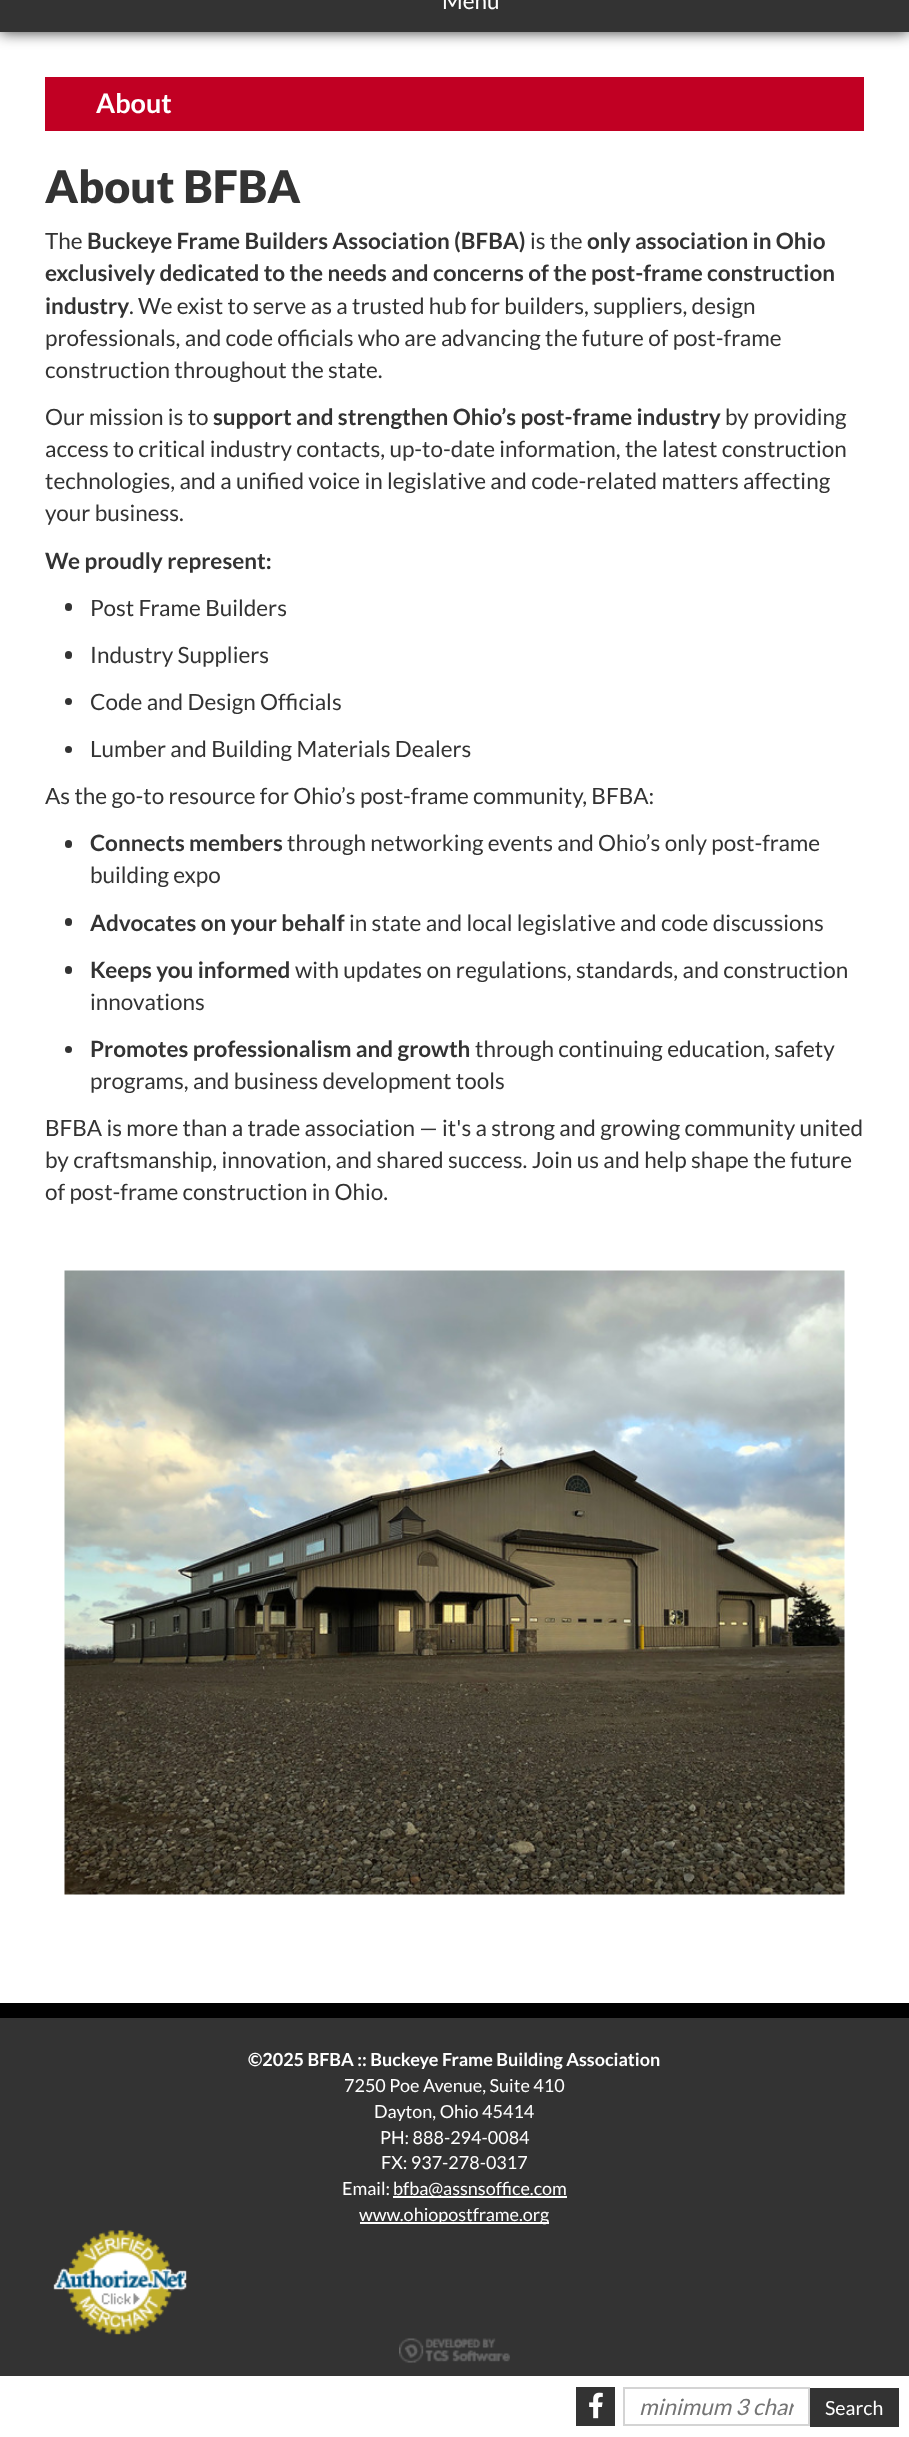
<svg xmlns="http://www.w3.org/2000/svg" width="909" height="2437">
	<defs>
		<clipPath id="clip1"><path d="M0 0H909V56H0ZM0-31H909V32H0Z" clip-rule="evenodd" /></clipPath>
		<clipPath id="clip2"><rect x="639" y="2393" width="155" height="27" /></clipPath>
	</defs>
	<rect width="100%" height="100%" fill="#333333" />
	<rect x="0" y="32" width="909" height="1971" fill="#FFFFFF" />
	<g clip-path="url(#clip1)">
		<rect x="0" y="-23" width="909" height="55" fill="#333333" filter="blur(7.5px)" />
	</g>
	<text x="442" y="9" font-family="Lato" font-size="22.5" fill="#FFFFFF">Menu</text>
	<rect x="45" y="77" width="819" height="54" fill="#C10023" />
	<text x="96" y="113" font-family="Lato" font-size="27" font-weight="700" fill="#FFFFFF">About</text>
	<text x="45" y="203" font-family="Lato" font-size="45" font-weight="900" fill="#333333">About BFBA</text>
	<text x="45" y="249" font-family="Lato" font-size="22.5" fill="#333333">The</text>
	<text x="87" y="249" font-family="Lato" font-size="22.5" font-weight="700" fill="#333333">Buckeye Frame Builders Association (BFBA)</text>
	<text x="530" y="249" font-family="Lato" font-size="22.5" fill="#333333">is the</text>
	<g font-family="Lato" font-size="22.5" font-weight="700" fill="#333333">
		<text x="587" y="249">only association in Ohio</text>
		<text x="45" y="281">exclusively dedicated to the needs and concerns of the post-frame construction</text>
		<text x="45" y="314">industry</text>
	</g>
	<g font-family="Lato" font-size="22.5" fill="#333333">
		<text x="129" y="314">. We exist to serve as a trusted hub for builders, suppliers, design</text>
		<text x="45" y="346">professionals, and code officials who are advancing the future of post-frame</text>
		<text x="45" y="378">construction throughout the state.</text>
		<text x="45" y="425">Our mission is to</text>
	</g>
	<text x="213" y="425" font-family="Lato" font-size="22.5" font-weight="700" fill="#333333">support and strengthen Ohio’s post-frame industry</text>
	<g font-family="Lato" font-size="22.5" fill="#333333">
		<text x="725" y="425">by providing</text>
		<text x="45" y="457">access to critical industry contacts, up-to-date information, the latest construction</text>
		<text x="45" y="489">technologies, and a unified voice in legislative and code-related matters affecting</text>
		<text x="45" y="521">your business.</text>
	</g>
	<text x="45" y="569" font-family="Lato" font-size="22.5" font-weight="700" fill="#333333">We proudly represent:</text>
	<rect x="65" y="603" width="7" height="8" rx="3.5" fill="#333333" />
	<text x="90" y="616" font-family="Lato" font-size="22.5" fill="#333333">Post Frame Builders</text>
	<rect x="65" y="651" width="7" height="8" rx="3.5" fill="#333333" />
	<text x="90" y="663" font-family="Lato" font-size="22.5" fill="#333333">Industry Suppliers</text>
	<circle cx="68.5" cy="701.5" r="3.5" fill="#333333" />
	<text x="90" y="710" font-family="Lato" font-size="22.5" fill="#333333">Code and Design Officials</text>
	<circle cx="68.5" cy="749.5" r="3.5" fill="#333333" />
	<g font-family="Lato" font-size="22.5" fill="#333333">
		<text x="90" y="757">Lumber and Building Materials Dealers</text>
		<text x="45" y="804">As the go-to resource for Ohio’s post-frame community, BFBA:</text>
	</g>
	<rect x="65" y="840" width="7" height="8" rx="3.5" fill="#333333" />
	<text x="90" y="851" font-family="Lato" font-size="22.5" font-weight="700" fill="#333333">Connects members</text>
	<g font-family="Lato" font-size="22.5" fill="#333333">
		<text x="287" y="851">through networking events and Ohio’s only post-frame</text>
		<text x="90" y="883">building expo</text>
	</g>
	<rect x="65" y="918" width="7" height="8" rx="3.5" fill="#333333" />
	<text x="90" y="931" font-family="Lato" font-size="22.5" font-weight="700" fill="#333333">Advocates on your behalf</text>
	<text x="349" y="931" font-family="Lato" font-size="22.5" fill="#333333">in state and local legislative and code discussions</text>
	<rect x="65" y="966" width="7" height="8" rx="3.5" fill="#333333" />
	<text x="90" y="978" font-family="Lato" font-size="22.5" font-weight="700" fill="#333333">Keeps you informed</text>
	<g font-family="Lato" font-size="22.5" fill="#333333">
		<text x="295" y="978">with updates on regulations, standards, and construction</text>
		<text x="90" y="1010">innovations</text>
	</g>
	<circle cx="68.5" cy="1049.5" r="3.5" fill="#333333" />
	<text x="90" y="1057" font-family="Lato" font-size="22.5" font-weight="700" fill="#333333">Promotes professionalism and growth</text>
	<g font-family="Lato" font-size="22.5" fill="#333333">
		<text x="475" y="1057">through continuing education, safety</text>
		<text x="90" y="1089">programs, and business development tools</text>
		<text x="45" y="1136">BFBA is more than a trade association — it's a strong and growing community united</text>
		<text x="45" y="1168">by craftsmanship, innovation, and shared success. Join us and help shape the future</text>
		<text x="45" y="1200">of post-frame construction in Ohio.</text>
	</g>
	<image x="64" y="1270" width="781" height="625" href="assets/img1.png" />
	<rect x="0" y="2003" width="909" height="15" fill="#000000" />
	<text x="248" y="2066" font-family="Lato" font-size="18" font-weight="700" fill="#FFFFFF">©2025 BFBA :: Buckeye Frame Building Association</text>
	<g font-family="Lato" font-size="18" fill="#FFFFFF">
		<text x="344" y="2092">7250 Poe Avenue, Suite 410</text>
		<text x="374" y="2118">Dayton, Ohio 45414</text>
		<text x="380" y="2144">PH: 888-294-0084</text>
		<text x="381" y="2169">FX: 937-278-0317</text>
		<text x="342" y="2195">Email:</text>
	</g>
	<rect x="393" y="2196" width="174" height="2" fill="#FFFFFF" />
	<text x="393" y="2195" font-family="Lato" font-size="18" fill="#FFFFFF">bfba@assnsoffice.com</text>
	<rect x="360" y="2222" width="189" height="2" fill="#FFFFFF" />
	<text x="359" y="2221" font-family="Lato" font-size="18" fill="#FFFFFF">www.ohiopostframe.org</text>
	<image x="53" y="2230" width="134" height="105" href="assets/img2.png" />
	<image x="399" y="2338" width="111" height="25" href="assets/img3.png" />
	<rect x="0" y="2376" width="909" height="61" fill="#FFFFFF" />
	<rect x="576" y="2387" width="39" height="39" fill="#333333" />
	<image x="589" y="2392" width="14" height="27" href="assets/img4.png" />
	<rect x="624" y="2388" width="185" height="37" fill="none" stroke="#D4D4D4" stroke-width="2" />
	<g clip-path="url(#clip2)">
		<text x="639" y="2415" font-family="Lato" font-size="22.5" font-style="italic" fill="#757575">minimum 3 char</text>
	</g>
	<rect x="810" y="2388" width="89" height="39" fill="#333333" />
	<text x="825" y="2415" font-family="Lato" font-size="19.5" fill="#FFFFFF">Search</text>
</svg>
